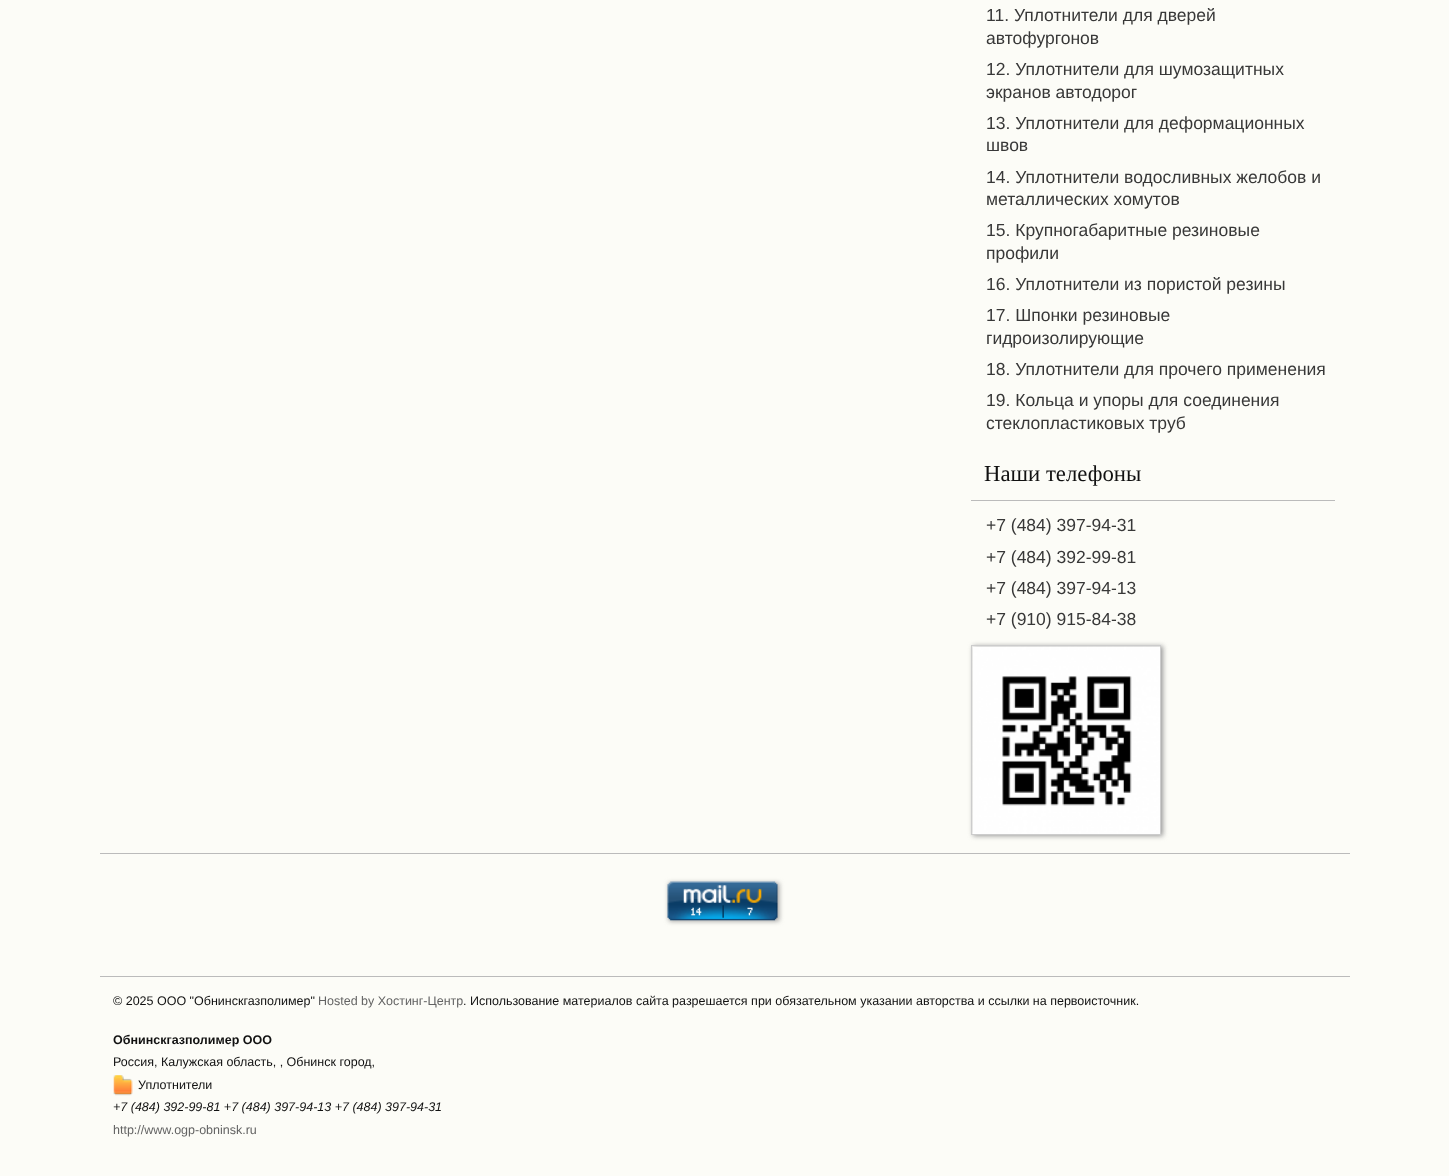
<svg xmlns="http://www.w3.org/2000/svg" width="1449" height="1176">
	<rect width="100%" height="100%" fill="#FCFCF7" />
	<g font-family="Liberation Sans" font-size="17.5" fill="#383838">
		<text x="986" y="21">11. Уплотнители для дверей</text>
		<text x="986" y="44">автофургонов</text>
		<text x="986" y="75">12. Уплотнители для шумозащитных</text>
		<text x="986" y="98">экранов автодорог</text>
		<text x="986" y="129">13. Уплотнители для деформационных</text>
		<text x="986" y="151">швов</text>
		<text x="986" y="183">14. Уплотнители водосливных желобов и</text>
		<text x="986" y="205">металлических хомутов</text>
		<text x="986" y="236">15. Крупногабаритные резиновые</text>
		<text x="986" y="259">профили</text>
		<text x="986" y="290">16. Уплотнители из пористой резины</text>
		<text x="986" y="321">17. Шпонки резиновые</text>
		<text x="986" y="344">гидроизолирующие</text>
		<text x="986" y="375">18. Уплотнители для прочего применения</text>
		<text x="986" y="406">19. Кольца и упоры для соединения</text>
		<text x="986" y="429">стеклопластиковых труб</text>
	</g>
	<rect x="971" y="500" width="364" height="1" fill="#BBBBBB" />
	<text x="984" y="481" font-family="Liberation Serif" font-size="22.75" fill="#111111">Наши телефоны</text>
	<g font-family="Liberation Sans" font-size="17.5" fill="#383838">
		<text x="986" y="531">+7 (484) 397-94-31</text>
		<text x="986" y="563">+7 (484) 392-99-81</text>
		<text x="986" y="594">+7 (484) 397-94-13</text>
		<text x="986" y="625">+7 (910) 915-84-38</text>
	</g>
	<rect x="973" y="646" width="190" height="190" fill="#999999" filter="blur(2.5px)" />
	<rect x="971.5" y="645.5" width="189" height="189" fill="none" stroke="#CCCCCC" />
	<image x="972" y="646" width="188" height="188" href="assets/img1.png" />
	<rect x="100" y="853" width="1250" height="1" fill="#BBBBBB" />
	<rect x="669" y="883" width="110" height="38" fill="#999999" filter="blur(2.5px)" />
	<image x="667" y="881" width="111" height="40" href="assets/img2.png" />
	<rect x="100" y="976" width="1250" height="1" fill="#BBBBBB" />
	<text x="113" y="1005" font-family="Liberation Sans" font-size="12.5" fill="#111111">© 2025 ООО "Обнинскгазполимер"</text>
	<text x="318" y="1005" font-family="Liberation Sans" font-size="12.5" fill="#636363">Hosted by Хостинг-Центр</text>
	<text x="463" y="1005" font-family="Liberation Sans" font-size="12.5" fill="#111111">. Использование материалов сайта разрешается при обязательном указании авторства и ссылки на первоисточник.</text>
	<text x="113" y="1044" font-family="Liberation Sans" font-size="12.5" font-weight="700" fill="#111111">Обнинскгазполимер ООО</text>
	<text x="113" y="1066" font-family="Liberation Sans" font-size="12.5" fill="#111111">Россия, Калужская область, , Обнинск город,</text>
	<image x="113" y="1075" width="20" height="21" href="assets/img3.png" />
	<text x="138" y="1089" font-family="Liberation Sans" font-size="12.5" fill="#111111">Уплотнители</text>
	<text x="113" y="1111" font-family="Liberation Sans" font-size="12.5" font-style="italic" fill="#111111">+7 (484) 392-99-81 +7 (484) 397-94-13 +7 (484) 397-94-31</text>
	<text x="113" y="1134" font-family="Liberation Sans" font-size="12.5" fill="#636363">http://www.ogp-obninsk.ru</text>
</svg>
